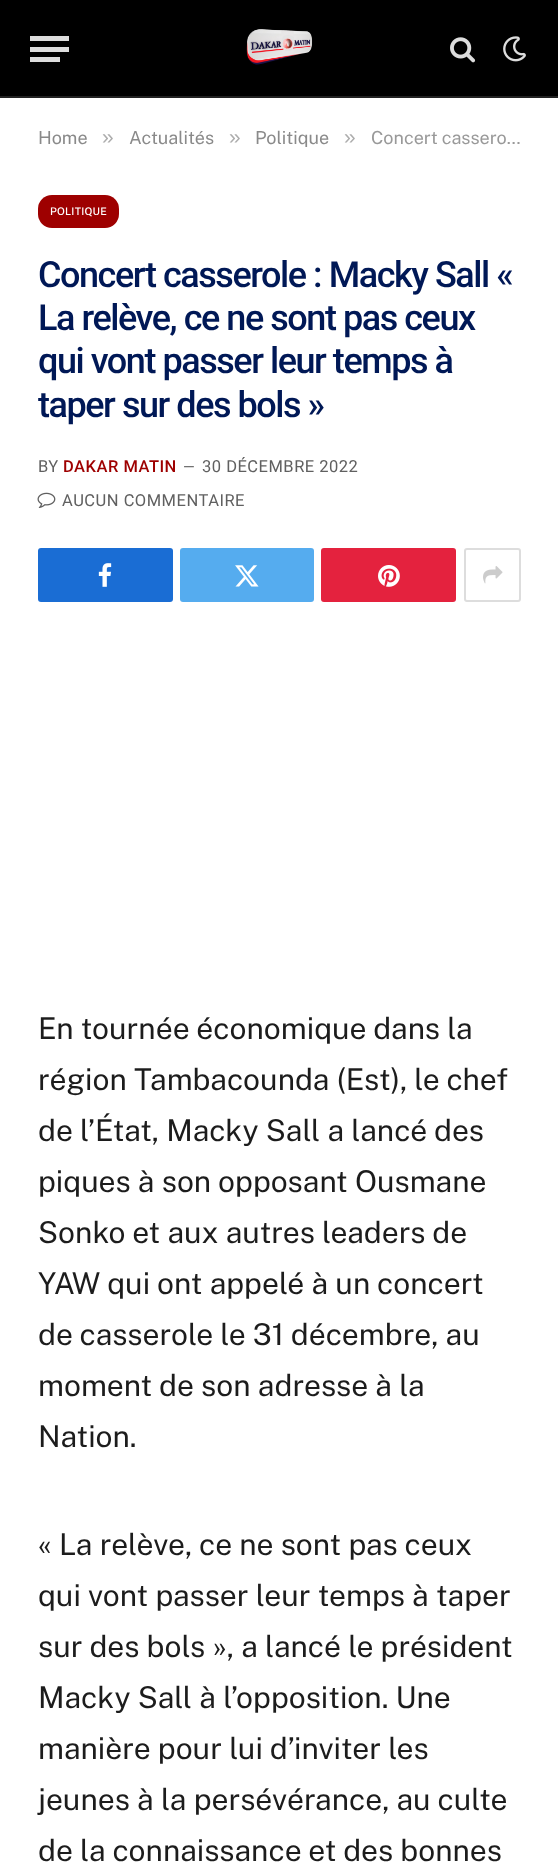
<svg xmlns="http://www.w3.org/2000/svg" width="558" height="1874">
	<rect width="100%" height="100%" fill="#FFFFFF" />
	<rect x="0" y="0" width="558" height="96" fill="#000000" />
	<rect x="0" y="96" width="558" height="2" fill="#222222" />
	<rect x="30" y="57" width="30" height="5" fill="#DDDDDD" />
	<rect x="30" y="36" width="39" height="5" fill="#DDDDDD" />
	<rect x="30" y="47" width="39" height="5" fill="#DDDDDD" />
	<image x="246" y="29" width="67" height="36" href="assets/img1.png" />
	<image x="450" y="37" width="26" height="26" href="assets/img2.png" />
	<image x="503" y="36" width="23" height="26" href="assets/img3.png" />
	<text x="38" y="144" font-family="Public Sans" font-size="18" fill="#8A8A8A">Home</text>
	<text x="102" y="144" font-family="Liberation Sans" font-size="21" fill="#ADADAD">»</text>
	<text x="129" y="144" font-family="Public Sans" font-size="18" fill="#8A8A8A">Actualités</text>
	<text x="229" y="144" font-family="Liberation Sans" font-size="21" fill="#ADADAD">»</text>
	<text x="255" y="144" font-family="Public Sans" font-size="18" fill="#8A8A8A">Politique</text>
	<text x="344" y="144" font-family="Liberation Sans" font-size="21" fill="#ADADAD">»</text>
	<text x="371" y="144" font-family="Public Sans" font-size="18" fill="#999999">Concert cassero…</text>
	<rect x="38" y="195" width="81" height="33" rx="14" fill="#9E0000" />
	<text x="50" y="215" font-family="Public Sans" font-size="10.5" font-weight="500" letter-spacing="0.25" fill="#FFFFFF">POLITIQUE</text>
	<g font-family="Roboto" font-size="36" font-weight="500" letter-spacing="-1.45" fill="#001856">
		<text x="38" y="287">Concert casserole : Macky Sall «</text>
		<text x="38" y="330">La relève, ce ne sont pas ceux</text>
		<text x="38" y="373">qui vont passer leur temps à</text>
		<text x="38" y="417">taper sur des bols »</text>
	</g>
	<text x="38" y="472" font-family="Roboto" font-size="16.5" letter-spacing="0.5" fill="#606060">BY</text>
	<text x="63" y="472" font-family="Roboto" font-size="16.5" font-weight="500" letter-spacing="0.5" fill="#9E0000">DAKAR MATIN</text>
	<text x="183" y="472" font-family="Roboto" font-size="15" fill="#606060">—</text>
	<text x="202" y="472" font-family="Roboto" font-size="16.5" letter-spacing="0.5" fill="#606060">30 DÉCEMBRE 2022</text>
	<image x="37" y="492" width="19" height="16" href="assets/img4.png" />
	<text x="62" y="506" font-family="Roboto" font-size="16.5" letter-spacing="0.5" fill="#606060">AUCUN COMMENTAIRE</text>
	<rect x="38" y="548" width="135" height="54" rx="3" fill="#1A6DD4" />
	<image x="98" y="563" width="14" height="24" href="assets/img5.png" />
	<rect x="180" y="548" width="134" height="54" rx="3" fill="#55ACEF" />
	<image x="235" y="565" width="24" height="22" href="assets/img6.png" />
	<rect x="321" y="548" width="135" height="54" rx="3" fill="#E4223E" />
	<image x="378" y="565" width="22" height="22" href="assets/img7.png" />
	<rect x="465" y="549" width="55" height="52" rx="2" fill="none" stroke="#DDDDDD" stroke-width="2" />
	<image x="483" y="566" width="20" height="18" href="assets/img8.png" />
	<g font-family="Public Sans" font-size="30" fill="#1C1C1C">
		<text x="38" y="1039">En tournée économique dans la</text>
		<text x="38" y="1090">région Tambacounda (Est), le chef</text>
		<text x="38" y="1141">de l’État, Macky Sall a lancé des</text>
		<text x="38" y="1192">piques à son opposant Ousmane</text>
		<text x="38" y="1243">Sonko et aux autres leaders de</text>
		<text x="38" y="1294">YAW qui ont appelé à un concert</text>
		<text x="38" y="1345">de casserole le 31 décembre, au</text>
		<text x="38" y="1396">moment de son adresse à la</text>
		<text x="38" y="1447">Nation.</text>
		<text x="38" y="1555">« La relève, ce ne sont pas ceux</text>
		<text x="38" y="1606">qui vont passer leur temps à taper</text>
		<text x="38" y="1657">sur des bols », a lancé le président</text>
		<text x="38" y="1708">Macky Sall à l’opposition. Une</text>
		<text x="38" y="1759">manière pour lui d’inviter les</text>
		<text x="38" y="1810">jeunes à la persévérance, au culte</text>
		<text x="38" y="1861">de la connaissance et des bonnes</text>
	</g>
</svg>
